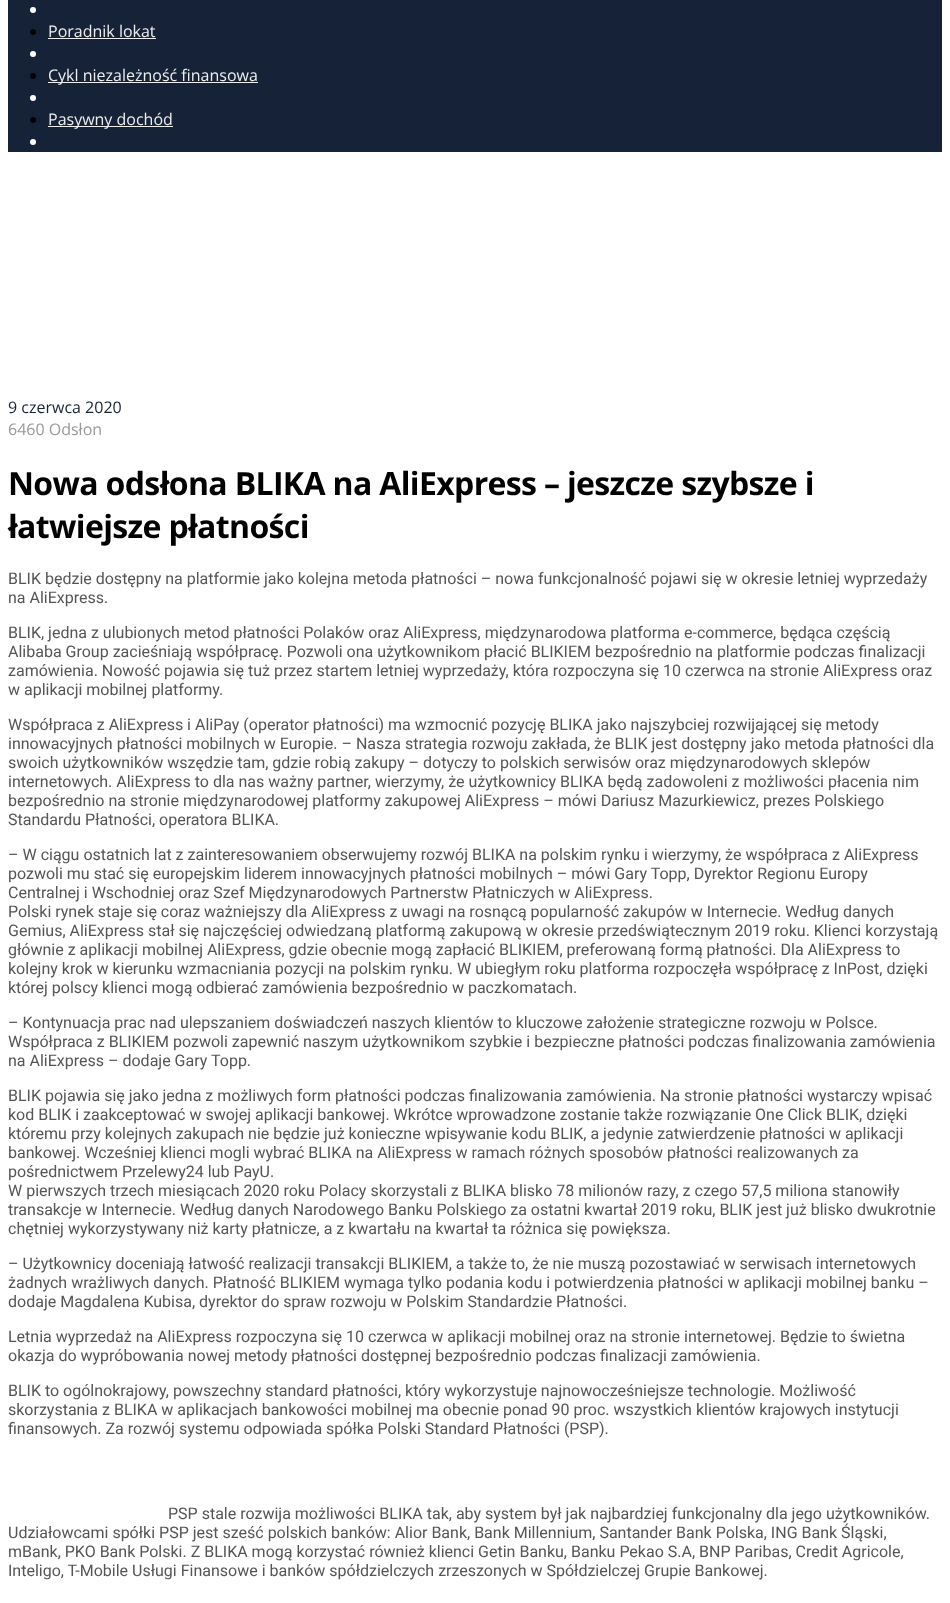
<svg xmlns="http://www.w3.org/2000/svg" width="950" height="1603">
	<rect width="100%" height="100%" fill="#FFFFFF" />
	<rect x="8" y="0" width="934" height="152" fill="#162238" />
	<circle cx="33" cy="10" r="3" fill="#FFFFFF" />
	<circle cx="33" cy="32" r="3" fill="#000000" />
	<text x="48" y="37" font-family="Open Sans" font-size="16" fill="#EEEEEE">Poradnik lokat</text>
	<rect x="48" y="38" width="108" height="1" fill="#EEEEEE" />
	<circle cx="33" cy="54" r="3" fill="#FFFFFF" />
	<circle cx="33" cy="76" r="3" fill="#000000" />
	<rect x="48" y="82" width="210" height="1" fill="#EEEEEE" />
	<text x="48" y="81" font-family="Open Sans" font-size="16" fill="#EEEEEE">Cykl niezależność finansowa</text>
	<circle cx="33" cy="98" r="3" fill="#FFFFFF" />
	<circle cx="33" cy="120" r="3" fill="#000000" />
	<rect x="48" y="126" width="125" height="1" fill="#EEEEEE" />
	<text x="48" y="125" font-family="Open Sans" font-size="16" fill="#EEEEEE">Pasywny dochód</text>
	<circle cx="33" cy="142" r="3" fill="#FFFFFF" />
	<text x="8" y="413" font-family="Open Sans" font-size="16" fill="#162238">9 czerwca 2020</text>
	<text x="8" y="435" font-family="Open Sans" font-size="16" fill="#999999">6460 Odsłon</text>
	<g font-family="Open Sans" font-size="32" font-weight="700" letter-spacing="-0.65" fill="#000000">
		<text x="8" y="495">Nowa odsłona BLIKA na AliExpress – jeszcze szybsze i</text>
		<text x="8" y="538">łatwiejsze płatności</text>
	</g>
	<g font-family="Roboto" font-size="16" fill="#555555">
		<text x="8" y="584">BLIK będzie dostępny na platformie jako kolejna metoda płatności – nowa funkcjonalność pojawi się w okresie letniej wyprzedaży</text>
		<text x="8" y="603">na AliExpress.</text>
		<text x="8" y="638">BLIK, jedna z ulubionych metod płatności Polaków oraz AliExpress, międzynarodowa platforma e-commerce, będąca częścią</text>
		<text x="8" y="657">Alibaba Group zacieśniają współpracę. Pozwoli ona użytkownikom płacić BLIKIEM bezpośrednio na platformie podczas finalizacji</text>
		<text x="8" y="676">zamówienia. Nowość pojawia się tuż przez startem letniej wyprzedaży, która rozpoczyna się 10 czerwca na stronie AliExpress oraz</text>
		<text x="8" y="695">w aplikacji mobilnej platformy.</text>
		<text x="8" y="730">Współpraca z AliExpress i AliPay (operator płatności) ma wzmocnić pozycję BLIKA jako najszybciej rozwijającej się metody</text>
		<text x="8" y="749">innowacyjnych płatności mobilnych w Europie. – Nasza strategia rozwoju zakłada, że BLIK jest dostępny jako metoda płatności dla</text>
		<text x="8" y="768">swoich użytkowników wszędzie tam, gdzie robią zakupy – dotyczy to polskich serwisów oraz międzynarodowych sklepów</text>
		<text x="8" y="787">internetowych. AliExpress to dla nas ważny partner, wierzymy, że użytkownicy BLIKA będą zadowoleni z możliwości płacenia nim</text>
		<text x="8" y="806">bezpośrednio na stronie międzynarodowej platformy zakupowej AliExpress – mówi Dariusz Mazurkiewicz, prezes Polskiego</text>
		<text x="8" y="825">Standardu Płatności, operatora BLIKA.</text>
		<text x="8" y="860">– W ciągu ostatnich lat z zainteresowaniem obserwujemy rozwój BLIKA na polskim rynku i wierzymy, że współpraca z AliExpress</text>
		<text x="8" y="879">pozwoli mu stać się europejskim liderem innowacyjnych płatności mobilnych – mówi Gary Topp, Dyrektor Regionu Europy</text>
		<text x="8" y="898">Centralnej i Wschodniej oraz Szef Międzynarodowych Partnerstw Płatniczych w AliExpress.</text>
		<text x="8" y="917">Polski rynek staje się coraz ważniejszy dla AliExpress z uwagi na rosnącą popularność zakupów w Internecie. Według danych</text>
		<text x="8" y="936">Gemius, AliExpress stał się najczęściej odwiedzaną platformą zakupową w okresie przedświątecznym 2019 roku. Klienci korzystają</text>
		<text x="8" y="955">głównie z aplikacji mobilnej AliExpress, gdzie obecnie mogą zapłacić BLIKIEM, preferowaną formą płatności. Dla AliExpress to</text>
		<text x="8" y="974">kolejny krok w kierunku wzmacniania pozycji na polskim rynku. W ubiegłym roku platforma rozpoczęła współpracę z InPost, dzięki</text>
		<text x="8" y="993">której polscy klienci mogą odbierać zamówienia bezpośrednio w paczkomatach.</text>
		<text x="8" y="1028">– Kontynuacja prac nad ulepszaniem doświadczeń naszych klientów to kluczowe założenie strategiczne rozwoju w Polsce.</text>
		<text x="8" y="1047">Współpraca z BLIKIEM pozwoli zapewnić naszym użytkownikom szybkie i bezpieczne płatności podczas finalizowania zamówienia</text>
		<text x="8" y="1066">na AliExpress – dodaje Gary Topp.</text>
		<text x="8" y="1101">BLIK pojawia się jako jedna z możliwych form płatności podczas finalizowania zamówienia. Na stronie płatności wystarczy wpisać</text>
		<text x="8" y="1120">kod BLIK i zaakceptować w swojej aplikacji bankowej. Wkrótce wprowadzone zostanie także rozwiązanie One Click BLIK, dzięki</text>
		<text x="8" y="1139">któremu przy kolejnych zakupach nie będzie już konieczne wpisywanie kodu BLIK, a jedynie zatwierdzenie płatności w aplikacji</text>
		<text x="8" y="1158">bankowej. Wcześniej klienci mogli wybrać BLIKA na AliExpress w ramach różnych sposobów płatności realizowanych za</text>
		<text x="8" y="1177">pośrednictwem Przelewy24 lub PayU.</text>
		<text x="8" y="1196">W pierwszych trzech miesiącach 2020 roku Polacy skorzystali z BLIKA blisko 78 milionów razy, z czego 57,5 miliona stanowiły</text>
		<text x="8" y="1215">transakcje w Internecie. Według danych Narodowego Banku Polskiego za ostatni kwartał 2019 roku, BLIK jest już blisko dwukrotnie</text>
		<text x="8" y="1234">chętniej wykorzystywany niż karty płatnicze, a z kwartału na kwartał ta różnica się powiększa.</text>
		<text x="8" y="1269">– Użytkownicy doceniają łatwość realizacji transakcji BLIKIEM, a także to, że nie muszą pozostawiać w serwisach internetowych</text>
		<text x="8" y="1288">żadnych wrażliwych danych. Płatność BLIKIEM wymaga tylko podania kodu i potwierdzenia płatności w aplikacji mobilnej banku –</text>
		<text x="8" y="1307">dodaje Magdalena Kubisa, dyrektor do spraw rozwoju w Polskim Standardzie Płatności.</text>
		<text x="8" y="1342">Letnia wyprzedaż na AliExpress rozpoczyna się 10 czerwca w aplikacji mobilnej oraz na stronie internetowej. Będzie to świetna</text>
		<text x="8" y="1361">okazja do wypróbowania nowej metody płatności dostępnej bezpośrednio podczas finalizacji zamówienia.</text>
		<text x="8" y="1396">BLIK to ogólnokrajowy, powszechny standard płatności, który wykorzystuje najnowocześniejsze technologie. Możliwość</text>
		<text x="8" y="1415">skorzystania z BLIKA w aplikacjach bankowości mobilnej ma obecnie ponad 90 proc. wszystkich klientów krajowych instytucji</text>
		<text x="8" y="1434">finansowych. Za rozwój systemu odpowiada spółka Polski Standard Płatności (PSP).</text>
		<text x="168" y="1519">PSP stale rozwija możliwości BLIKA tak, aby system był jak najbardziej funkcjonalny dla jego użytkowników.</text>
		<text x="8" y="1538">Udziałowcami spółki PSP jest sześć polskich banków: Alior Bank, Bank Millennium, Santander Bank Polska, ING Bank Śląski,</text>
		<text x="8" y="1557">mBank, PKO Bank Polski. Z BLIKA mogą korzystać również klienci Getin Banku, Banku Pekao S.A, BNP Paribas, Credit Agricole,</text>
		<text x="8" y="1576">Inteligo, T-Mobile Usługi Finansowe i banków spółdzielczych zrzeszonych w Spółdzielczej Grupie Bankowej.</text>
	</g>
</svg>
